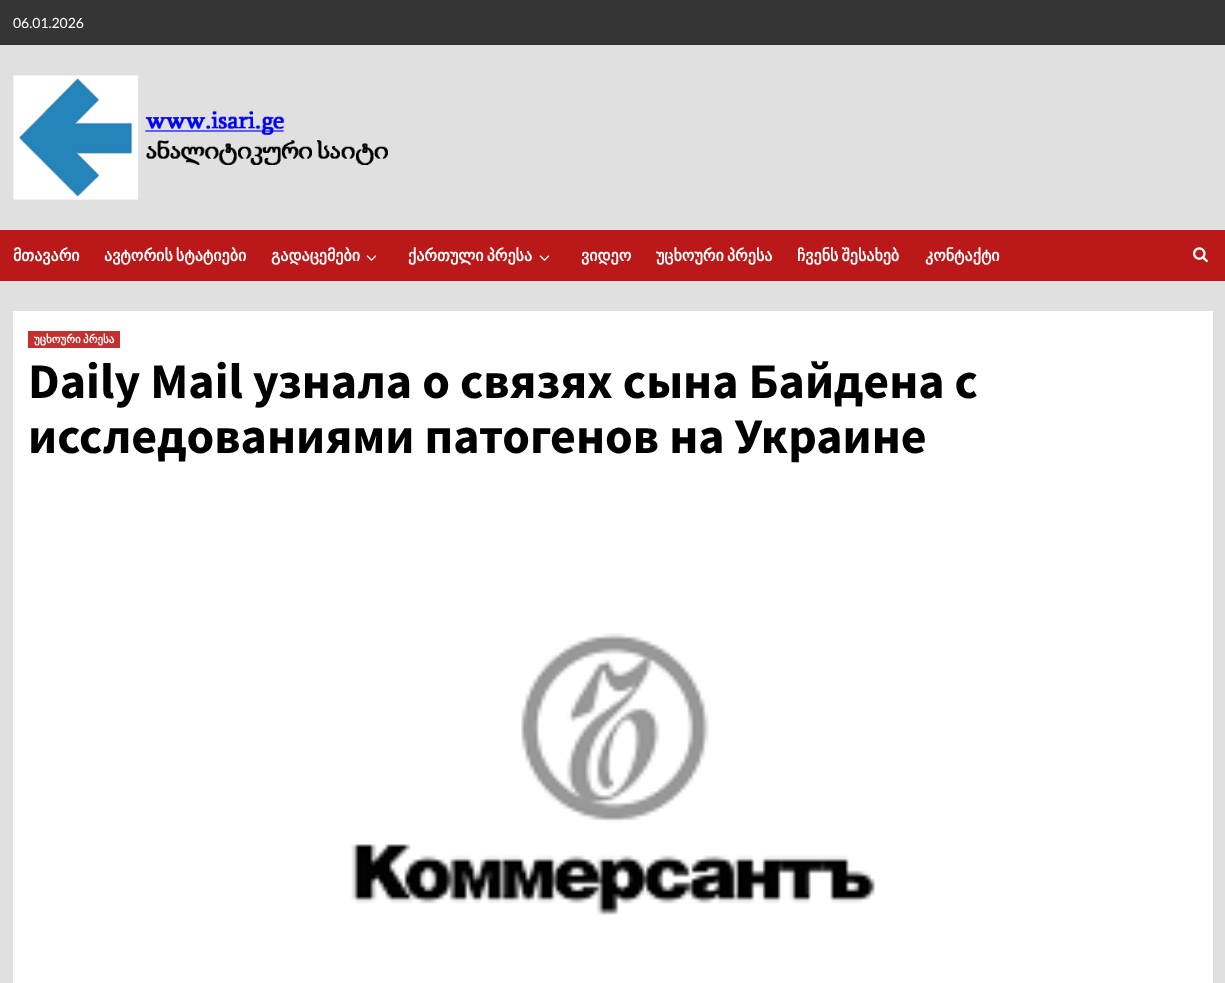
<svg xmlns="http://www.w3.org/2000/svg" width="1225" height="983">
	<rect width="100%" height="100%" fill="#E0E0E0" />
	<rect x="0" y="0" width="1225" height="45" fill="#353535" />
	<text x="13" y="28" font-family="Lato" font-size="14" fill="#FFFFFF">06.01.2026</text>
	<image x="13" y="75" width="375" height="125" href="assets/img1.png" />
	<rect x="0" y="230" width="1225" height="51" fill="#BB1919" />
	<g font-family="DejaVu Sans" font-size="16" font-weight="700" fill="#FFFFFF">
		<text x="13" y="261">მთავარი</text>
		<text x="104" y="261" word-spacing="-2">ავტორის სტატიები</text>
		<text x="271" y="261">გადაცემები</text>
	</g>
	<image x="366" y="255" width="11" height="6" href="assets/img2.png" />
	<text x="408" y="261" word-spacing="-2" font-family="DejaVu Sans" font-size="16" font-weight="700" fill="#FFFFFF">ქართული პრესა</text>
	<image x="539" y="255" width="11" height="6" href="assets/img2.png" />
	<g font-family="DejaVu Sans" font-size="16" font-weight="700" fill="#FFFFFF">
		<text x="581" y="261">ვიდეო</text>
		<text x="656" y="261" word-spacing="-2">უცხოური პრესა</text>
		<text x="797" y="261" word-spacing="-2">ჩვენს შესახებ</text>
		<text x="925" y="261">კონტაქტი</text>
	</g>
	<image x="1193" y="247" width="15" height="16" href="assets/img3.png" />
	<rect x="13" y="311" width="1200" height="672" fill="#FFFFFF" />
	<rect x="28" y="331" width="92" height="17" fill="#C23030" />
	<text x="34" y="343" word-spacing="-1" font-family="DejaVu Sans" font-size="11" font-weight="700" fill="#FFFFFF">უცხოური პრესა</text>
	<g font-family="Source Sans Pro" font-size="50" font-weight="700" fill="#000000">
		<text x="28" y="398">Daily Mail узнала о связях сына Байдена с</text>
		<text x="28" y="453">исследованиями патогенов на Украине</text>
	</g>
	<image x="351" y="633" width="524" height="282" href="assets/img4.png" />
</svg>
